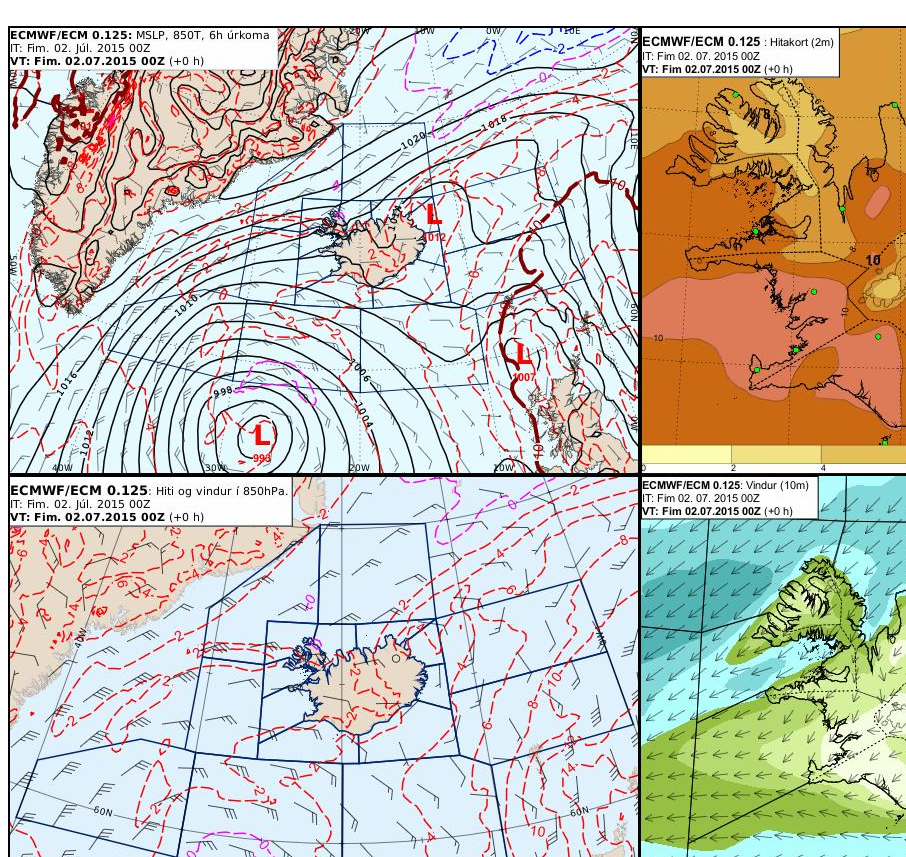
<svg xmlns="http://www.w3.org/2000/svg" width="906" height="857">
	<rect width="100%" height="100%" fill="#FFFFFF" />
	<image x="8" y="26" width="898" height="831" href="assets/img1.png" />
</svg>
